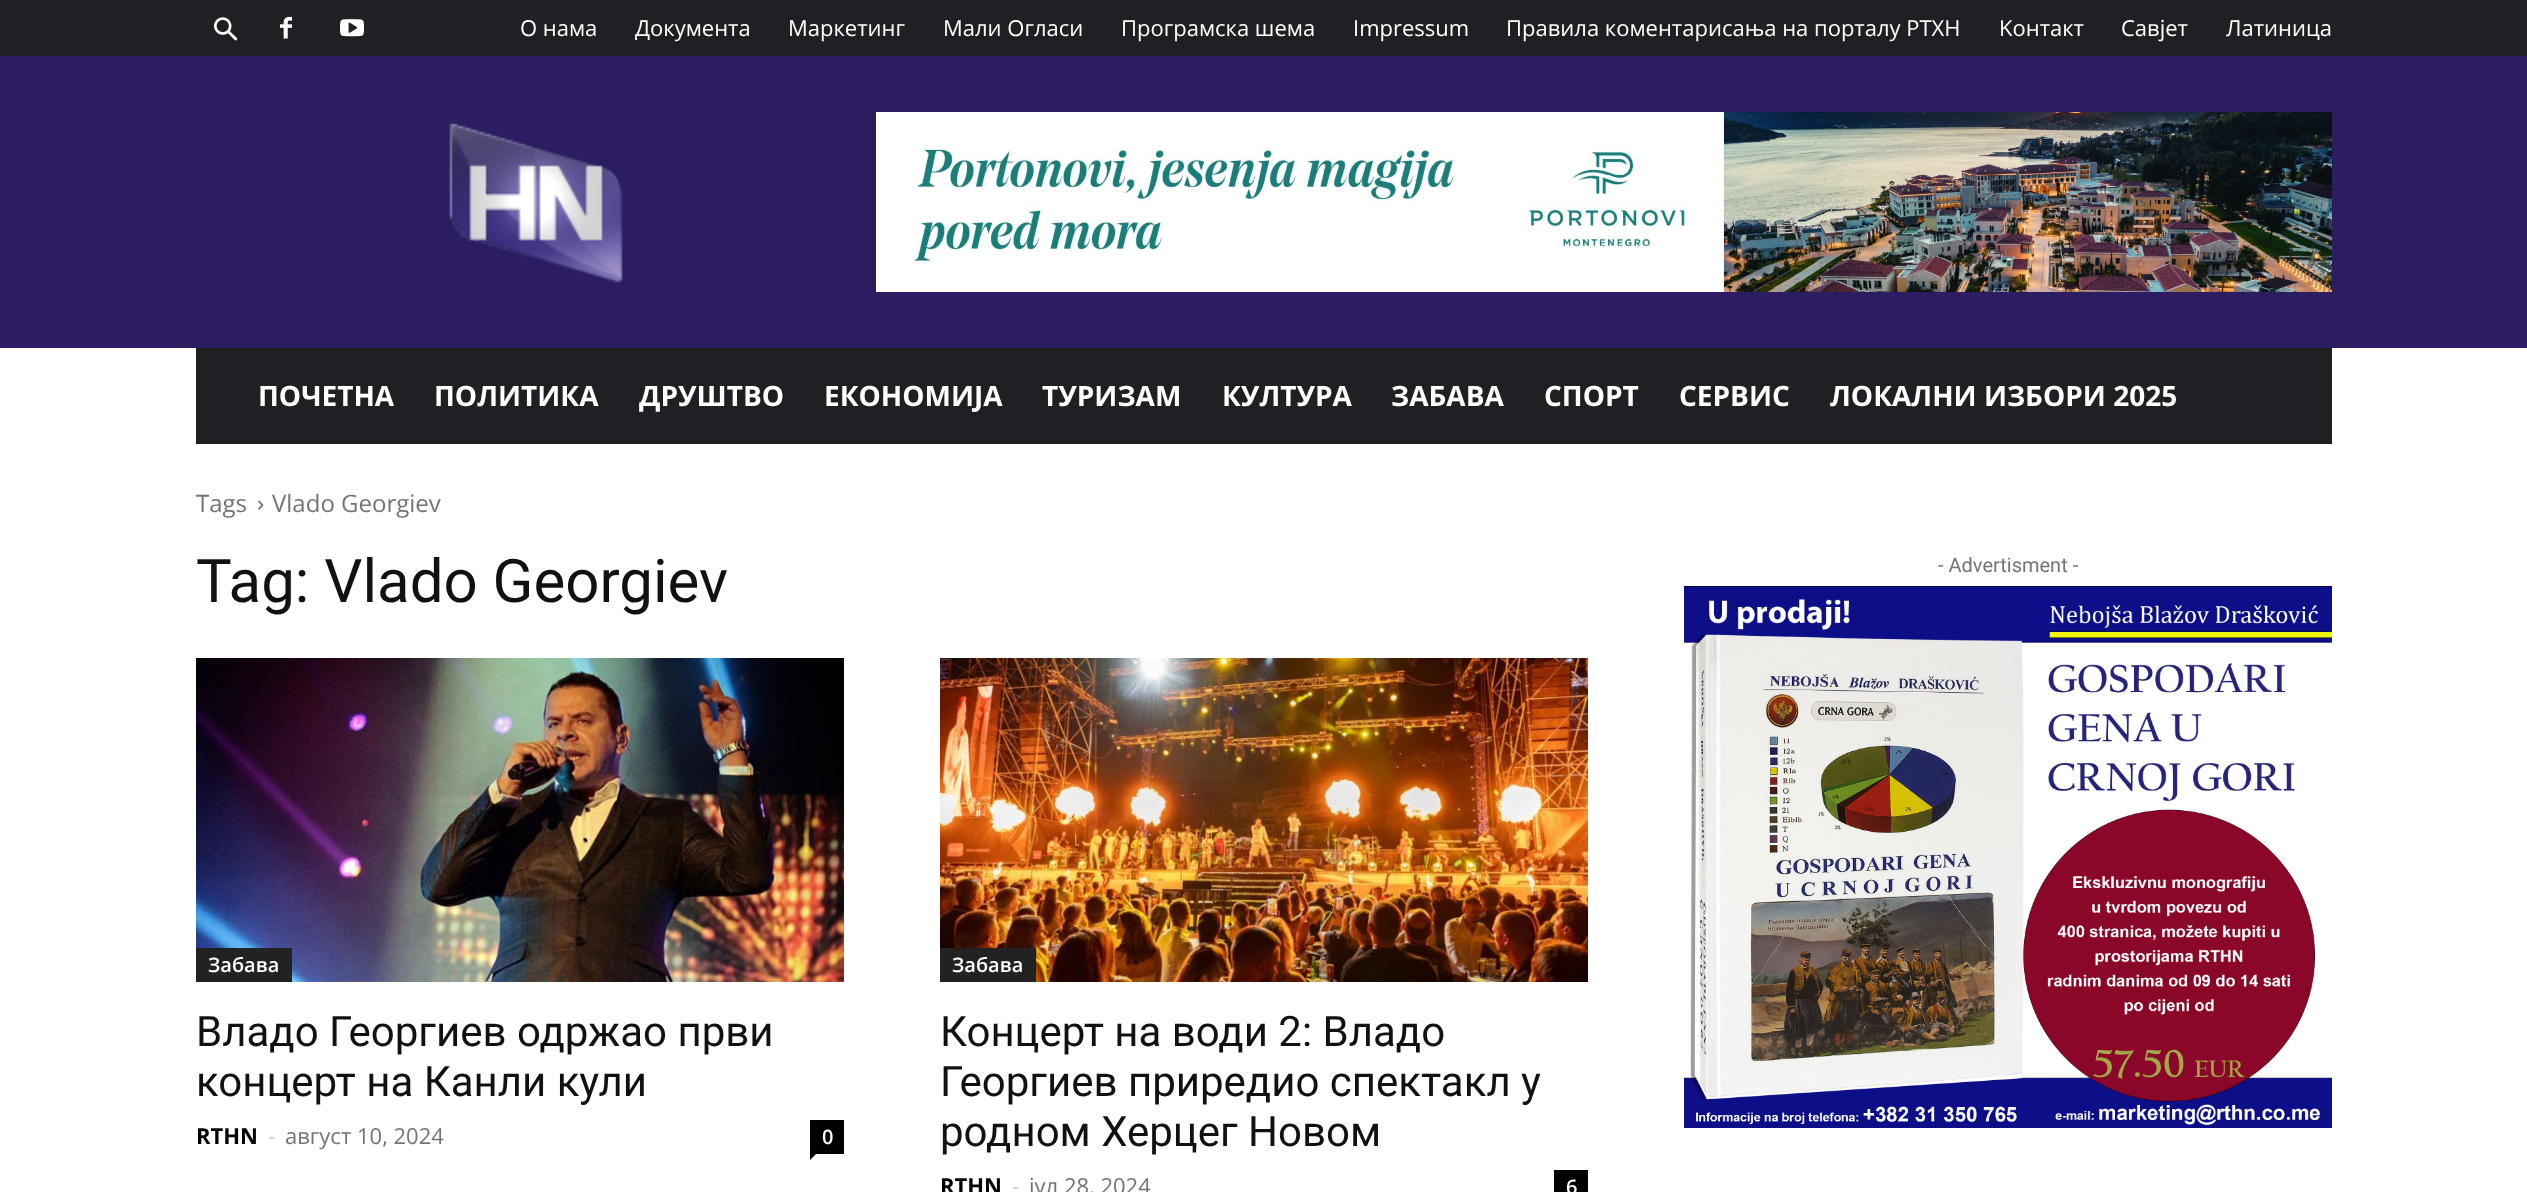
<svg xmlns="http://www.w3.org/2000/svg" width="2527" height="1192">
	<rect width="100%" height="100%" fill="#FFFFFF" />
	<rect x="0" y="0" width="2527" height="56" fill="#1F2024" />
	<image x="214" y="17" width="24" height="24" href="assets/img1.png" />
	<image x="280" y="16" width="12" height="23" href="assets/img2.png" />
	<image x="340" y="19" width="24" height="18" href="assets/img3.png" />
	<g font-family="Open Sans" font-size="22" fill="#FFFFFF">
		<text x="520" y="36">O нама</text>
		<text x="635" y="36">Документа</text>
		<text x="788" y="36">Маркетинг</text>
		<text x="943" y="36">Мали Огласи</text>
		<text x="1121" y="36">Програмска шема</text>
		<text x="1353" y="36">Impressum</text>
		<text x="1506" y="36">Правила коментарисања на порталу РТХН</text>
		<text x="1999" y="36">Kонтакт</text>
		<text x="2121" y="36">Савјет</text>
		<text x="2226" y="36">Латиница</text>
	</g>
	<rect x="0" y="56" width="2527" height="292" fill="#2C1D63" />
	<image x="449" y="123" width="174" height="160" href="assets/img4.png" />
	<image x="876" y="112" width="1456" height="180" href="assets/img5.png" />
	<rect x="196" y="348" width="2136" height="96" fill="#1F2024" />
	<g font-family="Open Sans" font-size="28" font-weight="700" fill="#FFFFFF">
		<text x="258" y="406">ПОЧЕТНА</text>
		<text x="434" y="406">ПОЛИТИКА</text>
		<text x="639" y="406">ДРУШТВО</text>
		<text x="824" y="406">ЕКОНОМИЈА</text>
		<text x="1042" y="406">ТУРИЗАМ</text>
		<text x="1222" y="406">КУЛТУРА</text>
		<text x="1391" y="406">ЗАБАВА</text>
		<text x="1544" y="406">СПОРТ</text>
		<text x="1679" y="406">СЕРВИС</text>
		<text x="1830" y="406">ЛОКАЛНИ ИЗБОРИ 2025</text>
	</g>
	<text x="196" y="512" font-family="Open Sans" font-size="24" fill="#747474">Tags</text>
	<image x="258" y="500" width="6" height="10" href="assets/img6.png" />
	<text x="272" y="512" font-family="Open Sans" font-size="24" fill="#747474">Vlado Georgiev</text>
	<text x="196" y="602" font-family="Roboto" font-size="60" fill="#111111">Tag: Vlado Georgiev</text>
	<image x="196" y="658" width="648" height="324" href="assets/img7.png" />
	<rect x="196" y="948" width="96" height="34" fill="#222222" />
	<text x="208" y="972" font-family="Open Sans" font-size="20" font-weight="600" fill="#FFFFFF">Забава</text>
	<g font-family="Roboto" font-size="42" fill="#111111">
		<text x="196" y="1046">Владо Георгиев одржао први</text>
		<text x="196" y="1096">концерт на Канли кули</text>
	</g>
	<text x="196" y="1144" font-family="Open Sans" font-size="22" font-weight="700" fill="#000000">RTHN</text>
	<text x="268" y="1144" font-family="Open Sans" font-size="22" fill="#CCCCCC">-</text>
	<text x="285" y="1144" font-family="Open Sans" font-size="22" fill="#747474">август 10, 2024</text>
	<rect x="810" y="1120" width="34" height="34" fill="#000000" />
	<text x="822" y="1144" font-family="Open Sans" font-size="20" font-weight="600" fill="#FFFFFF">0</text>
	<path d="M810 1154H816L810 1160Z" fill="#000000" />
	<image x="940" y="658" width="648" height="324" href="assets/img8.png" />
	<rect x="940" y="948" width="96" height="34" fill="#222222" />
	<text x="952" y="972" font-family="Open Sans" font-size="20" font-weight="600" fill="#FFFFFF">Забава</text>
	<g font-family="Roboto" font-size="42" fill="#111111">
		<text x="940" y="1046">Концерт на води 2: Владо</text>
		<text x="940" y="1096">Георгиев приредио спектакл у</text>
		<text x="940" y="1146">родном Херцег Новом</text>
	</g>
	<text x="940" y="1194" font-family="Open Sans" font-size="22" font-weight="700" fill="#000000">RTHN</text>
	<text x="1012" y="1194" font-family="Open Sans" font-size="22" fill="#CCCCCC">-</text>
	<text x="1029" y="1194" font-family="Open Sans" font-size="22" fill="#747474">јул 28, 2024</text>
	<rect x="1554" y="1170" width="34" height="22" fill="#000000" />
	<text x="1566" y="1194" font-family="Open Sans" font-size="20" font-weight="600" fill="#FFFFFF">6</text>
	<text x="1938" y="572" font-family="Roboto" font-size="20" fill="#747474">- Advertisment -</text>
	<image x="1684" y="586" width="648" height="542" href="assets/img9.png" />
</svg>
